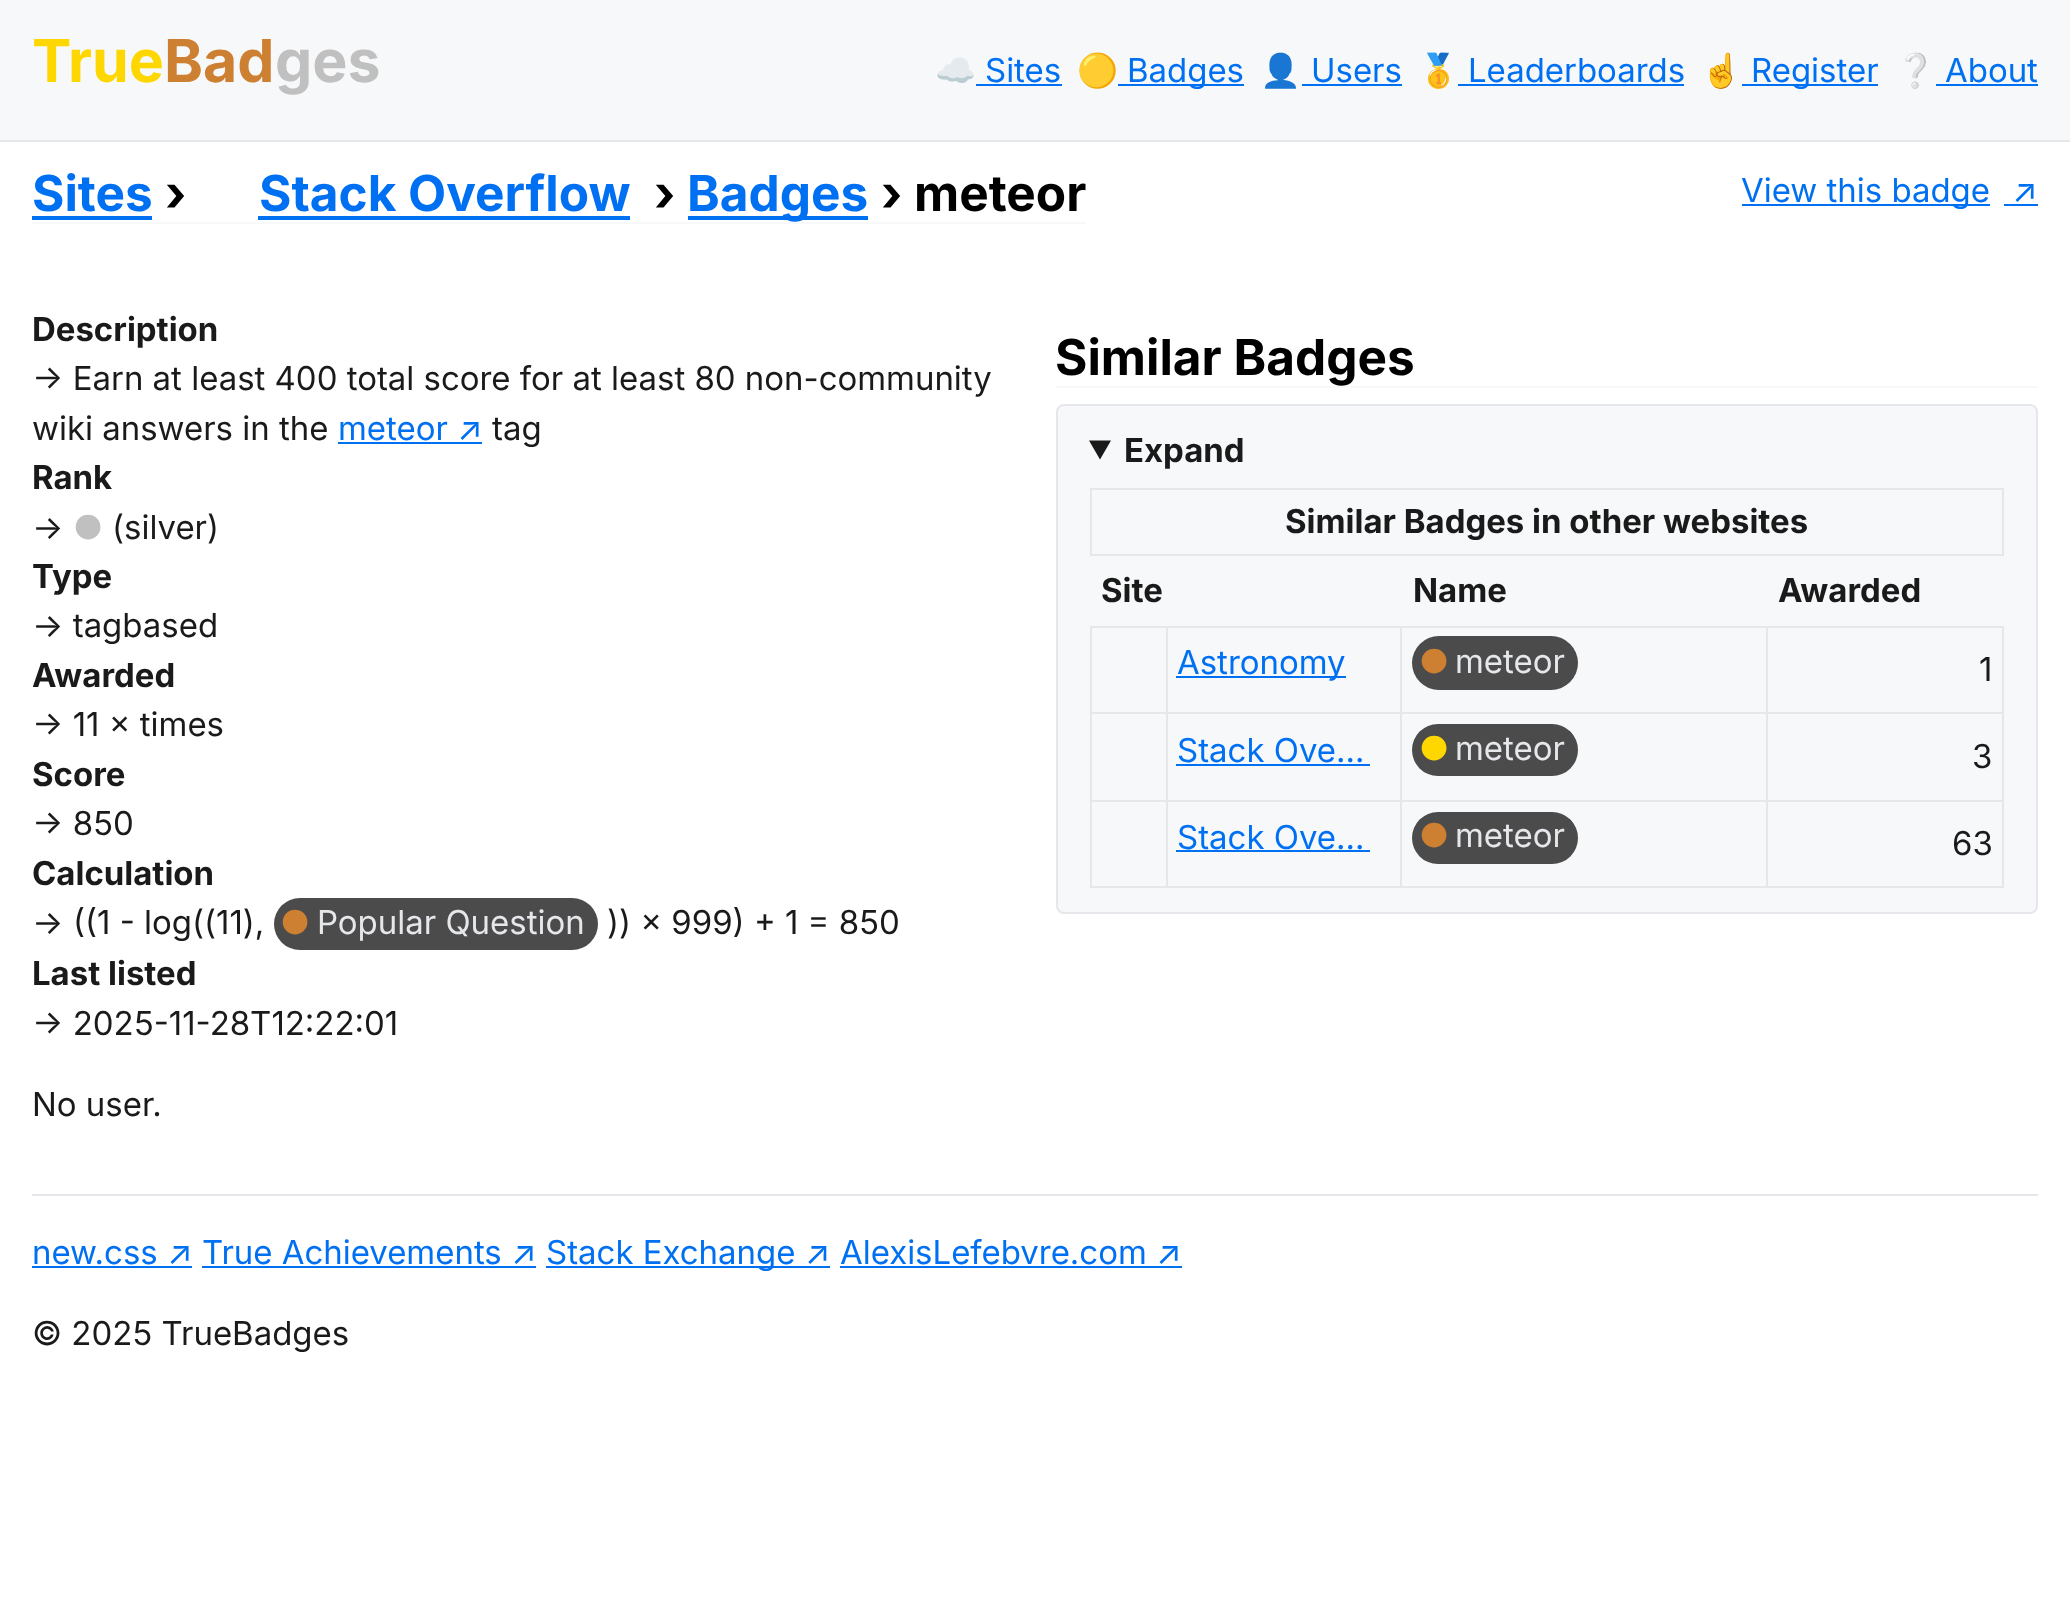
<svg xmlns="http://www.w3.org/2000/svg" width="2070" height="1618">
	<rect width="100%" height="100%" fill="#FFFFFF" />
	<rect x="0" y="0" width="2070" height="140" fill="#F6F8FA" />
	<rect x="0" y="140" width="2070" height="2" fill="#E5E7EB" />
	<text x="32" y="82" font-family="Inter" font-size="59" font-weight="700" fill="#FFD700">True</text>
	<text x="164" y="82" font-family="Inter" font-size="59" font-weight="700" fill="#CD7F32">Bad</text>
	<text x="275" y="82" font-family="Inter" font-size="59" font-weight="700" fill="#C0C0C0">ges</text>
	<text x="935" y="82" font-family="Noto Color Emoji" font-size="32.95" fill="#0070F3">☁️</text>
	<text x="985" y="82" font-family="Inter" font-size="32.95" fill="#0070F3">Sites</text>
	<rect x="976" y="84" width="86" height="2" fill="#0070F3" />
	<text x="1077" y="82" font-family="Noto Color Emoji" font-size="32.95" fill="#0070F3">🟡️</text>
	<rect x="1118" y="84" width="126" height="2" fill="#0070F3" />
	<text x="1127" y="82" font-family="Inter" font-size="32.95" fill="#0070F3">Badges</text>
	<text x="1260" y="82" font-family="Noto Color Emoji" font-size="32.95" fill="#0070F3">👤</text>
	<text x="1311" y="82" font-family="Inter" font-size="32.95" fill="#0070F3">Users</text>
	<rect x="1302" y="84" width="100" height="2" fill="#0070F3" />
	<text x="1418" y="82" font-family="Noto Color Emoji" font-size="32.95" fill="#0070F3">🥇</text>
	<text x="1468" y="82" font-family="Inter" font-size="32.95" fill="#0070F3">Leaderboards</text>
	<rect x="1458" y="84" width="226" height="2" fill="#0070F3" />
	<text x="1701" y="82" font-family="Noto Color Emoji" font-size="32.95" fill="#0070F3">☝️</text>
	<rect x="1742" y="84" width="136" height="2" fill="#0070F3" />
	<text x="1751" y="82" font-family="Inter" font-size="32.95" fill="#0070F3">Register</text>
	<text x="1895" y="82" font-family="Noto Color Emoji" font-size="32.95" fill="#0070F3">❔</text>
	<text x="1945" y="82" font-family="Inter" font-size="32.95" fill="#0070F3">About</text>
	<rect x="1936" y="84" width="102" height="2" fill="#0070F3" />
	<rect x="32" y="222" width="1054" height="2" fill="#F6F8FA" />
	<text x="32" y="211" font-family="Inter" font-size="49.5" font-weight="700" fill="#0070F3">Sites</text>
	<rect x="32" y="216" width="120" height="4" fill="#0070F3" />
	<text x="165" y="211" font-family="Inter" font-size="49.5" font-weight="700" fill="#000000">›</text>
	<text x="259" y="211" font-family="Inter" font-size="49.5" font-weight="700" fill="#0070F3">Stack Overflow</text>
	<rect x="258" y="216" width="372" height="4" fill="#0070F3" />
	<text x="654" y="211" font-family="Inter" font-size="49.5" font-weight="700" fill="#000000">›</text>
	<rect x="688" y="216" width="180" height="4" fill="#0070F3" />
	<text x="687" y="211" font-family="Inter" font-size="49.5" font-weight="700" fill="#0070F3">Badges</text>
	<text x="881" y="211" font-family="Inter" font-size="49.5" font-weight="700" fill="#000000">› meteor</text>
	<rect x="1742" y="204" width="248" height="2" fill="#0070F3" />
	<text x="1741" y="202" font-family="Inter" font-size="32.95" fill="#0070F3">View this badge</text>
	<rect x="2004" y="204" width="34" height="2" fill="#0070F3" />
	<text x="2012" y="202" font-family="Inter" font-size="32.95" fill="#0070F3">↗</text>
	<text x="32" y="341" font-family="Inter" font-size="32.95" font-weight="700" fill="#1A1A1A">Description</text>
	<g font-family="Inter" font-size="32.95" fill="#1A1A1A">
		<text x="32" y="390">→ Earn at least 400 total score for at least 80 non-community</text>
		<text x="32" y="440">wiki answers in the</text>
	</g>
	<text x="338" y="440" font-family="Inter" font-size="32.95" fill="#0070F3">meteor ↗</text>
	<rect x="338" y="442" width="144" height="2" fill="#0070F3" />
	<text x="492" y="440" font-family="Inter" font-size="32.95" fill="#1A1A1A">tag</text>
	<text x="32" y="489" font-family="Inter" font-size="32.95" font-weight="700" fill="#1A1A1A">Rank</text>
	<text x="32" y="539" font-family="Inter" font-size="32.95" fill="#1A1A1A">→</text>
	<text x="73" y="539" font-family="Inter" font-size="32.95" fill="#C0C0C0">●</text>
	<text x="112" y="539" font-family="Inter" font-size="32.95" fill="#1A1A1A">(silver)</text>
	<text x="32" y="588" font-family="Inter" font-size="32.95" font-weight="700" fill="#1A1A1A">Type</text>
	<text x="32" y="637" font-family="Inter" font-size="32.95" fill="#1A1A1A">→ tagbased</text>
	<text x="32" y="687" font-family="Inter" font-size="32.95" font-weight="700" fill="#1A1A1A">Awarded</text>
	<text x="32" y="736" font-family="Inter" font-size="32.95" fill="#1A1A1A">→ 11 × times</text>
	<text x="32" y="786" font-family="Inter" font-size="32.95" font-weight="700" fill="#1A1A1A">Score</text>
	<text x="32" y="835" font-family="Inter" font-size="32.95" fill="#1A1A1A">→ 850</text>
	<text x="32" y="885" font-family="Inter" font-size="32.95" font-weight="700" fill="#1A1A1A">Calculation</text>
	<g font-family="Inter" font-size="32.95" fill="#1A1A1A">
		<text x="32" y="934">→</text>
		<text x="73" y="934">((1 - log((11),</text>
	</g>
	<rect x="274" y="898" width="324" height="52" rx="26" fill="#4B4B4B" />
	<text x="280" y="934" font-family="Inter" font-size="32.95" fill="#CD7F32">●</text>
	<text x="317" y="934" font-family="Inter" font-size="32.95" fill="#E5E7EB">Popular Question</text>
	<text x="607" y="934" font-family="Inter" font-size="32.95" fill="#1A1A1A">)) × 999) + 1 = 850</text>
	<text x="32" y="985" font-family="Inter" font-size="32.95" font-weight="700" fill="#1A1A1A">Last listed</text>
	<g font-family="Inter" font-size="32.95" fill="#1A1A1A">
		<text x="32" y="1035">→ 2025-11-28T12:22:01</text>
		<text x="32" y="1116">No user.</text>
	</g>
	<rect x="1056" y="386" width="982" height="2" fill="#F6F8FA" />
	<text x="1055" y="375" font-family="Inter" font-size="49.5" font-weight="700" fill="#000000">Similar Badges</text>
	<rect x="1057" y="405" width="980" height="508" rx="7" fill="#F6F8FA" stroke="#E5E7EB" stroke-width="2" />
	<path d="M1089 440.5H1111L1100 459.5Z" fill="#1A1A1A" />
	<text x="1124" y="462" font-family="Inter" font-size="32.95" font-weight="700" fill="#1A1A1A">Expand</text>
	<rect x="1090" y="488" width="914" height="2" fill="#E5E7EB" />
	<rect x="2002" y="488" width="2" height="66" fill="#E5E7EB" />
	<rect x="1090" y="488" width="2" height="66" fill="#E5E7EB" />
	<text x="1285" y="533" font-family="Inter" font-size="32.95" font-weight="700" fill="#1A1A1A">Similar Badges in other websites</text>
	<rect x="1090" y="554" width="914" height="2" fill="#E5E7EB" />
	<rect x="1766" y="626" width="238" height="2" fill="#E5E7EB" />
	<rect x="1766" y="712" width="238" height="2" fill="#E5E7EB" />
	<rect x="1766" y="800" width="238" height="2" fill="#E5E7EB" />
	<rect x="2002" y="800" width="2" height="88" fill="#E5E7EB" />
	<rect x="1766" y="886" width="238" height="2" fill="#E5E7EB" />
	<rect x="1766" y="800" width="2" height="88" fill="#E5E7EB" />
	<rect x="1400" y="800" width="368" height="2" fill="#E5E7EB" />
	<rect x="1766" y="712" width="2" height="90" fill="#E5E7EB" />
	<rect x="1400" y="712" width="368" height="2" fill="#E5E7EB" />
	<rect x="1766" y="626" width="2" height="88" fill="#E5E7EB" />
	<rect x="1400" y="626" width="368" height="2" fill="#E5E7EB" />
	<rect x="1400" y="886" width="368" height="2" fill="#E5E7EB" />
	<rect x="1400" y="800" width="2" height="88" fill="#E5E7EB" />
	<rect x="1166" y="800" width="236" height="2" fill="#E5E7EB" />
	<rect x="1400" y="712" width="2" height="90" fill="#E5E7EB" />
	<rect x="1166" y="712" width="236" height="2" fill="#E5E7EB" />
	<rect x="1400" y="626" width="2" height="88" fill="#E5E7EB" />
	<rect x="1166" y="626" width="236" height="2" fill="#E5E7EB" />
	<rect x="1166" y="886" width="236" height="2" fill="#E5E7EB" />
	<rect x="1166" y="800" width="2" height="88" fill="#E5E7EB" />
	<rect x="1090" y="800" width="78" height="2" fill="#E5E7EB" />
	<rect x="1166" y="712" width="2" height="90" fill="#E5E7EB" />
	<rect x="1090" y="712" width="78" height="2" fill="#E5E7EB" />
	<rect x="1166" y="626" width="2" height="88" fill="#E5E7EB" />
	<rect x="1090" y="626" width="78" height="2" fill="#E5E7EB" />
	<rect x="1090" y="886" width="78" height="2" fill="#E5E7EB" />
	<rect x="1090" y="800" width="2" height="88" fill="#E5E7EB" />
	<rect x="1090" y="712" width="2" height="90" fill="#E5E7EB" />
	<rect x="1090" y="626" width="2" height="88" fill="#E5E7EB" />
	<rect x="1090" y="554" width="2" height="74" fill="#E5E7EB" />
	<rect x="1090" y="556" width="2" height="70" fill="#F6F8FA" />
	<g font-family="Inter" font-size="32.95" font-weight="700" fill="#1A1A1A">
		<text x="1101" y="602">Site</text>
		<text x="1413" y="602">Name</text>
	</g>
	<rect x="2002" y="712" width="2" height="90" fill="#E5E7EB" />
	<rect x="2002" y="626" width="2" height="88" fill="#E5E7EB" />
	<rect x="2002" y="554" width="2" height="74" fill="#E5E7EB" />
	<rect x="2002" y="556" width="2" height="70" fill="#F6F8FA" />
	<text x="1778" y="602" font-family="Inter" font-size="32.95" font-weight="700" fill="#1A1A1A">Awarded</text>
	<rect x="1176" y="676" width="170" height="2" fill="#0070F3" />
	<text x="1177" y="674" font-family="Inter" font-size="32.95" fill="#0070F3">Astronomy</text>
	<rect x="1412" y="636" width="166" height="54" rx="27" fill="#4B4B4B" />
	<text x="1419" y="673" font-family="Inter" font-size="32.95" fill="#CD7F32">●</text>
	<text x="1455" y="673" font-family="Inter" font-size="32.95" fill="#E5E7EB">meteor</text>
	<text x="1979" y="681" font-family="Inter" font-size="32.95" fill="#1A1A1A">1</text>
	<text x="1177" y="762" font-family="Inter" font-size="32.95" fill="#0070F3">Stack Ove…</text>
	<rect x="1176" y="764" width="194" height="2" fill="#0070F3" />
	<rect x="1412" y="724" width="166" height="52" rx="26" fill="#4B4B4B" />
	<text x="1419" y="760" font-family="Inter" font-size="32.95" fill="#FFD700">●</text>
	<text x="1455" y="760" font-family="Inter" font-size="32.95" fill="#E5E7EB">meteor</text>
	<text x="1972" y="768" font-family="Inter" font-size="32.95" fill="#1A1A1A">3</text>
	<text x="1177" y="849" font-family="Inter" font-size="32.95" fill="#0070F3">Stack Ove…</text>
	<rect x="1176" y="850" width="194" height="2" fill="#0070F3" />
	<rect x="1412" y="812" width="166" height="52" rx="26" fill="#4B4B4B" />
	<text x="1419" y="847" font-family="Inter" font-size="32.95" fill="#CD7F32">●</text>
	<text x="1455" y="847" font-family="Inter" font-size="32.95" fill="#E5E7EB">meteor</text>
	<text x="1952" y="855" font-family="Inter" font-size="32.95" fill="#1A1A1A">63</text>
	<rect x="32" y="1194" width="2006" height="2" fill="#E5E7EB" />
	<text x="32" y="1264" font-family="Inter" font-size="32.95" fill="#0070F3">new.css ↗</text>
	<rect x="32" y="1266" width="160" height="2" fill="#0070F3" />
	<text x="202" y="1264" font-family="Inter" font-size="32.95" fill="#0070F3">True Achievements ↗</text>
	<rect x="202" y="1266" width="334" height="2" fill="#0070F3" />
	<rect x="546" y="1266" width="284" height="2" fill="#0070F3" />
	<g font-family="Inter" font-size="32.95" fill="#0070F3">
		<text x="546" y="1264">Stack Exchange ↗</text>
		<text x="840" y="1264">AlexisLefebvre.com ↗</text>
	</g>
	<rect x="840" y="1266" width="342" height="2" fill="#0070F3" />
	<text x="32" y="1345" font-family="Inter" font-size="32.95" fill="#1A1A1A">© 2025 TrueBadges</text>
</svg>
